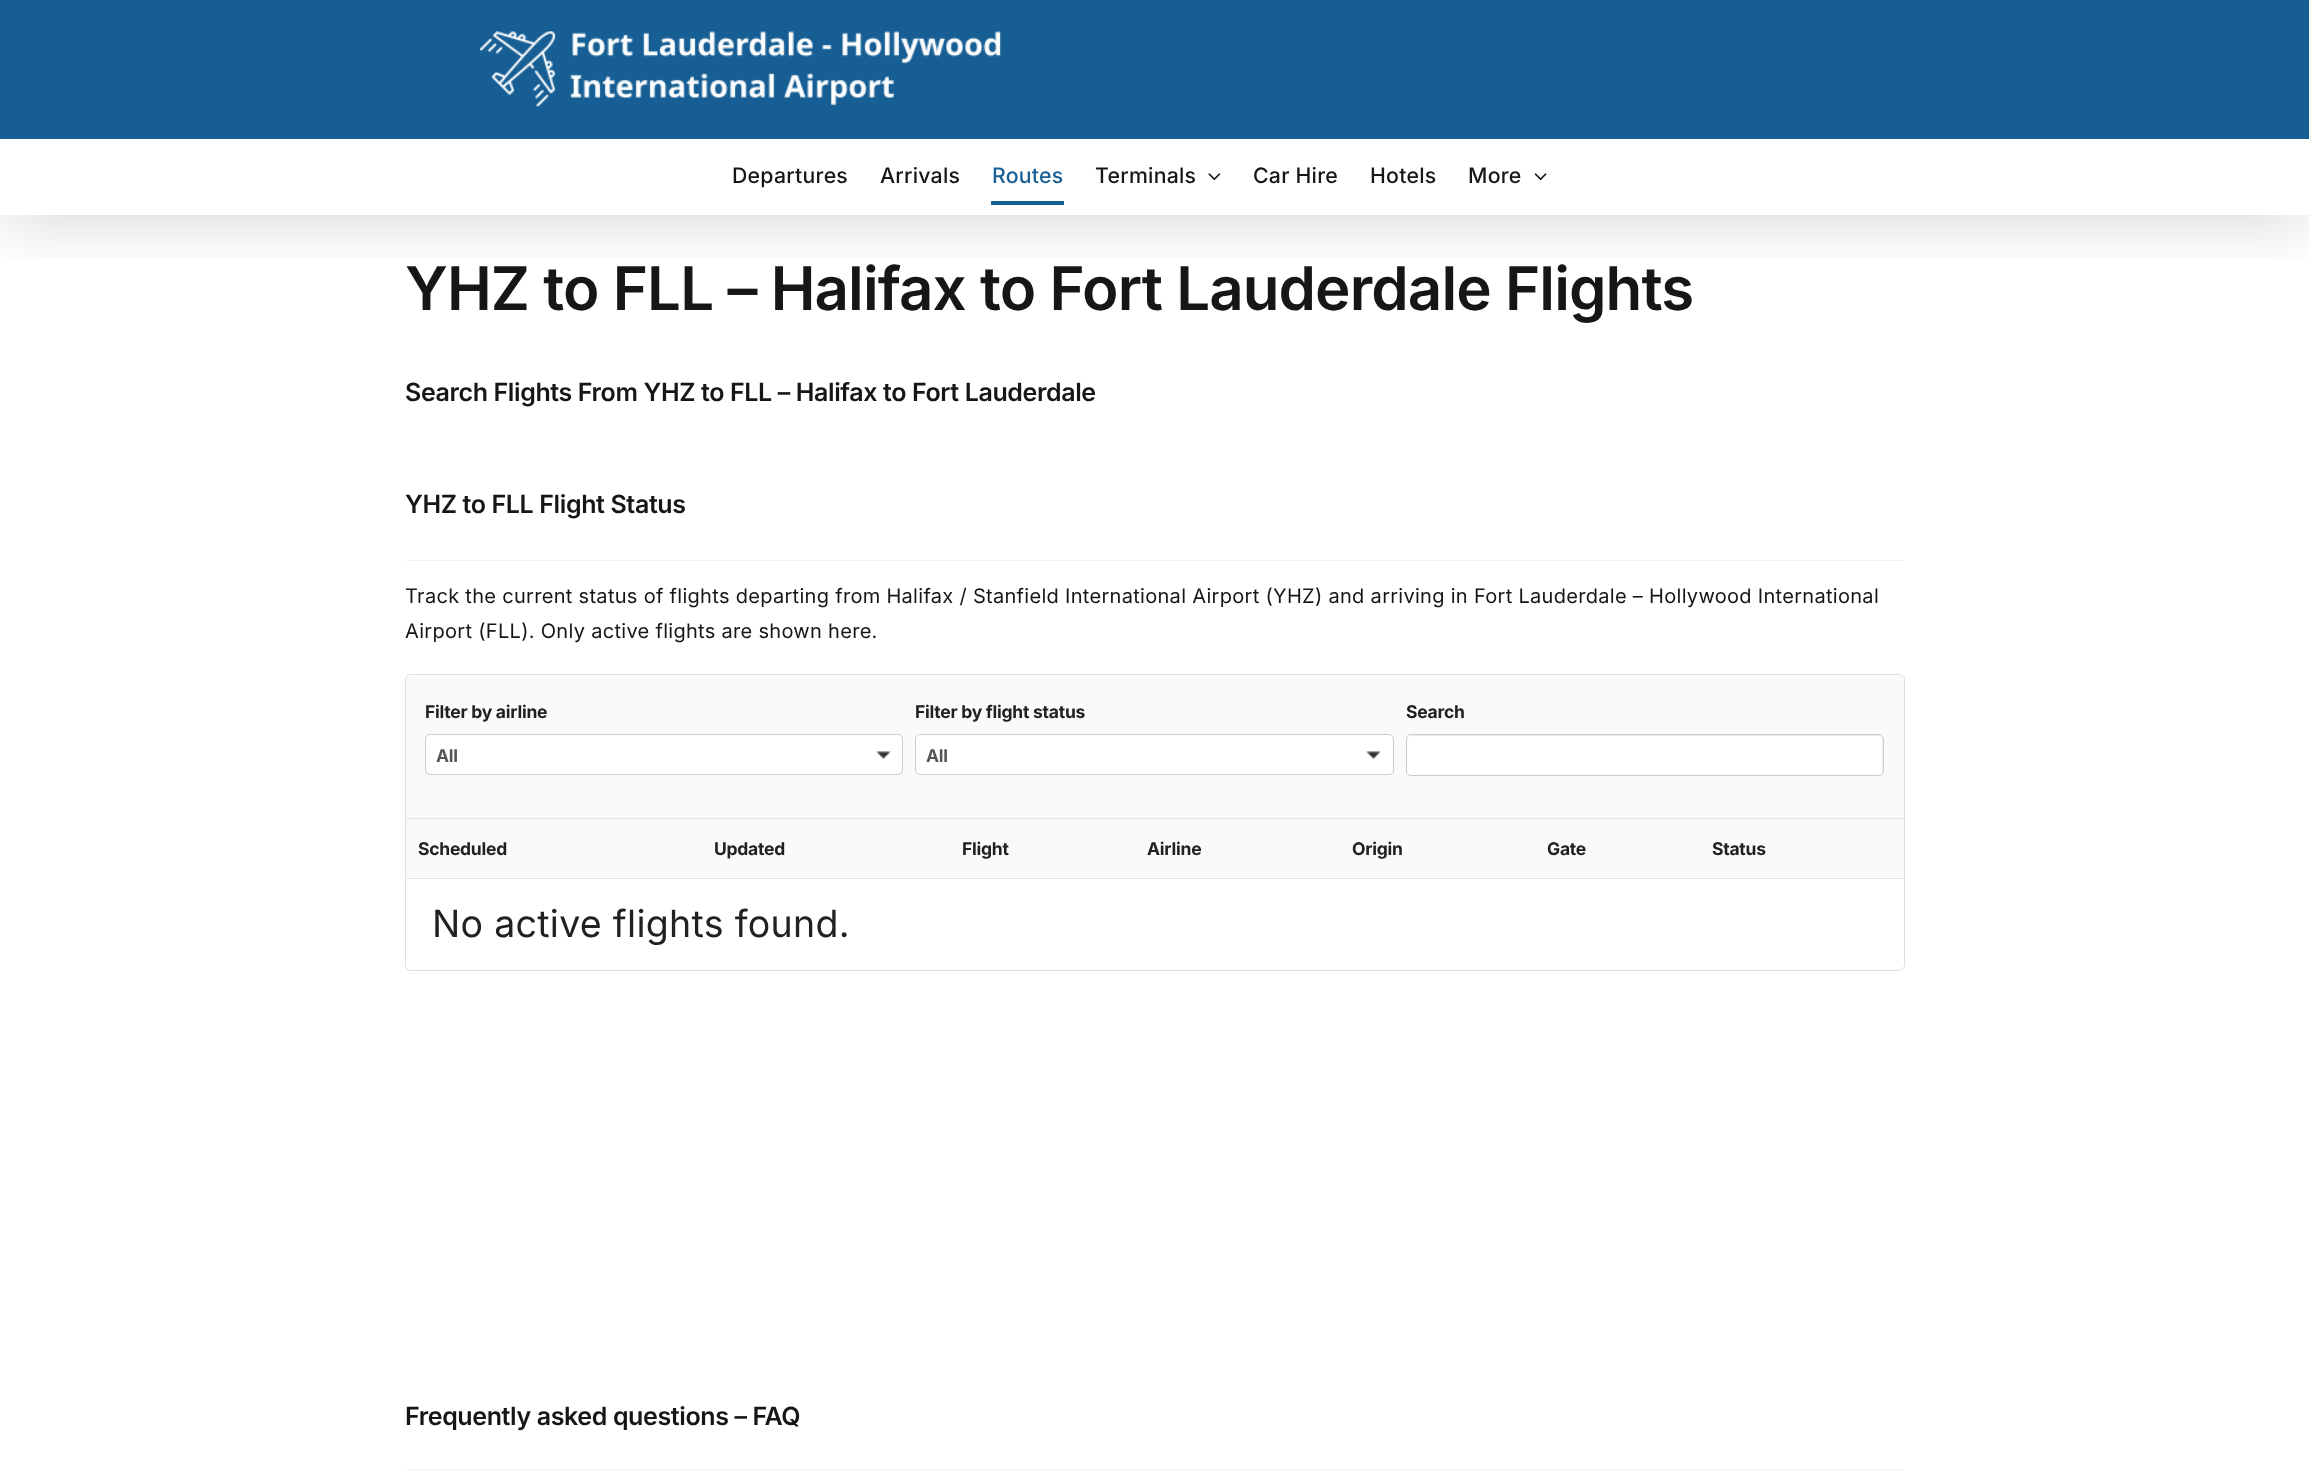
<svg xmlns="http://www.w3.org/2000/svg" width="2309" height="1475">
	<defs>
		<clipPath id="clip1"><rect x="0" y="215" width="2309" height="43" /></clipPath>
	</defs>
	<rect width="100%" height="100%" fill="#FFFFFF" />
	<g clip-path="url(#clip1)">
		<rect x="3" y="15" width="2305" height="210" fill="#000000" fill-opacity="0.14" filter="blur(31px)" />
	</g>
	<rect x="0" y="0" width="2309" height="139" fill="#175E94" />
	<image x="480" y="31" width="522" height="76" href="assets/img1.png" />
	<g font-family="Inter" font-size="21.25" font-weight="500" letter-spacing="0.25" fill="#141617">
		<text x="732" y="183">Departures</text>
		<text x="880" y="183">Arrivals</text>
	</g>
	<text x="992" y="183" font-family="Inter" font-size="21.25" font-weight="500" letter-spacing="0.25" fill="#175E94">Routes</text>
	<rect x="991" y="201" width="73" height="4" fill="#175E94" />
	<text x="1095" y="183" font-family="Inter" font-size="21.25" font-weight="500" letter-spacing="0.25" fill="#141617">Terminals</text>
	<image x="1208" y="173" width="13" height="8" href="assets/img2.png" />
	<g font-family="Inter" font-size="21.25" font-weight="500" letter-spacing="0.25" fill="#141617">
		<text x="1253" y="183">Car Hire</text>
		<text x="1370" y="183">Hotels</text>
		<text x="1468" y="183">More</text>
	</g>
	<image x="1534" y="173" width="13" height="8" href="assets/img3.png" />
	<text x="405" y="310" font-family="Inter" font-size="60" font-weight="600" letter-spacing="-0.9" fill="#141617">YHZ to FLL – Halifax to Fort Lauderdale Flights</text>
	<text x="405" y="401" font-family="Inter" font-size="25" font-weight="600" letter-spacing="-0.38" fill="#141617">Search Flights From YHZ to FLL – Halifax to Fort Lauderdale</text>
	<rect x="405" y="560" width="1500" height="1" fill="#F2F3F5" />
	<text x="405" y="513" font-family="Inter" font-size="25" font-weight="600" letter-spacing="-0.38" fill="#141617">YHZ to FLL Flight Status</text>
	<g font-family="Inter" font-size="20" letter-spacing="0.3" fill="#141617">
		<text x="405" y="603">Track the current status of flights departing from Halifax / Stanfield International Airport (YHZ) and arriving in Fort Lauderdale – Hollywood International</text>
		<text x="405" y="638">Airport (FLL). Only active flights are shown here.</text>
	</g>
	<rect x="405.5" y="674.5" width="1499" height="296" rx="5.5" fill="none" stroke="#DEDEDE" />
	<path d="M412 675H1898C1901.5 675 1904 677.5 1904 681V819H406V681C406 677.5 408.5 675 412 675Z" fill="#F9FAFB" />
	<rect x="406" y="818" width="1498" height="1" fill="#E3E5E6" />
	<text x="425" y="718" font-family="Inter" font-size="17.5" font-weight="700" letter-spacing="-0.25" fill="#202121">Filter by airline</text>
	<rect x="425.5" y="734.5" width="477" height="40" rx="4.5" fill="#FFFFFF" stroke="#CCCCCC" />
	<text x="436" y="762" font-family="Inter" font-size="17.5" font-weight="700" letter-spacing="-0.25" fill="#555555">All</text>
	<image x="876" y="751" width="15" height="8" href="assets/img4.png" />
	<text x="915" y="718" font-family="Inter" font-size="17.5" font-weight="700" letter-spacing="-0.25" fill="#202121">Filter by flight status</text>
	<rect x="915.5" y="734.5" width="478" height="40" rx="4.5" fill="#FFFFFF" stroke="#CCCCCC" />
	<text x="926" y="762" font-family="Inter" font-size="17.5" font-weight="700" letter-spacing="-0.25" fill="#555555">All</text>
	<image x="1366" y="751" width="15" height="8" href="assets/img4.png" />
	<text x="1406" y="718" font-family="Inter" font-size="17.5" font-weight="700" letter-spacing="-0.25" fill="#202121">Search</text>
	<rect x="1406" y="734" width="478" height="42" rx="5" fill="#FFFFFF" />
	<path d="M1411 736H1879C1884 736 1882 749 1882 751V774C1883 773 1883 772 1883 771V739C1883 737 1881 735 1879 735H1412C1410 735 1408 737 1408 739V740C1408 738 1409 736 1411 736Z" fill="#ECECEC" />
	<rect x="1406.5" y="734.5" width="477" height="41" rx="4.5" fill="none" stroke="#CCCCCC" />
	<rect x="406" y="819" width="1498" height="59" fill="#F9FAFB" />
	<rect x="406" y="878" width="1498" height="1" fill="#E3E5E6" />
	<g font-family="Inter" font-size="17.5" font-weight="700" letter-spacing="-0.25" fill="#202121">
		<text x="418" y="855">Scheduled</text>
		<text x="714" y="855">Updated</text>
		<text x="962" y="855">Flight</text>
		<text x="1147" y="855">Airline</text>
		<text x="1352" y="855">Origin</text>
		<text x="1547" y="855">Gate</text>
		<text x="1712" y="855">Status</text>
	</g>
	<text x="432" y="937" font-family="Inter" font-size="37.5" letter-spacing="0.3" fill="#202121">No active flights found.</text>
	<rect x="405" y="1469" width="1500" height="1" fill="#F2F3F5" />
	<text x="405" y="1425" font-family="Inter" font-size="25" font-weight="600" letter-spacing="-0.38" fill="#141617">Frequently asked questions – FAQ</text>
</svg>
